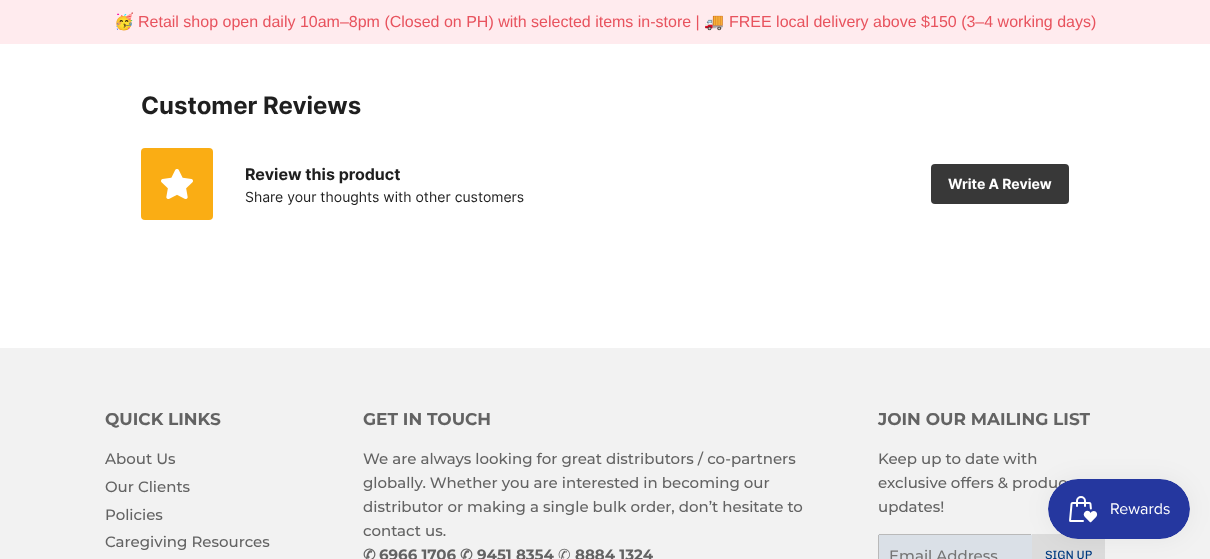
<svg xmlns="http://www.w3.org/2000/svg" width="1210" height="559">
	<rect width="100%" height="100%" fill="#FFFFFF" />
	<rect x="0" y="0" width="1210" height="44" fill="#FFEBEE" />
	<text x="114" y="27" font-family="Noto Color Emoji" font-size="16" fill="#E8535E">🥳</text>
	<text x="138" y="27" font-family="Liberation Sans" font-size="16" fill="#E8535E">Retail shop open daily 10am–8pm (Closed on PH) with selected items in-store |</text>
	<text x="704" y="27" font-family="Noto Color Emoji" font-size="16" fill="#E8535E">🚚</text>
	<text x="729" y="27" font-family="Liberation Sans" font-size="16" fill="#E8535E">FREE local delivery above $150 (3–4 working days)</text>
	<text x="141" y="114" font-family="Inter" font-size="24" font-weight="700" fill="#1F1F1F">Customer Reviews</text>
	<rect x="141" y="148" width="72" height="72" rx="4" fill="#FAAD14" />
	<image x="161" y="169" width="32" height="30" href="assets/img1.png" />
	<text x="245" y="180" font-family="Inter" font-size="16" font-weight="700" fill="#1F1F1F">Review this product</text>
	<text x="245" y="202" font-family="Inter" font-size="14" fill="#1F1F1F">Share your thoughts with other customers</text>
	<rect x="931" y="164" width="138" height="40" rx="4" fill="#383838" />
	<text x="948" y="189" font-family="Inter" font-size="14" font-weight="700" fill="#FFFFFF">Write A Review</text>
	<rect x="0" y="348" width="1210" height="211" fill="#F2F2F2" />
	<text x="105" y="425" font-family="Montserrat" font-size="17" font-weight="700" fill="#636363">QUICK LINKS</text>
	<g font-family="Montserrat" font-size="15" font-weight="500" fill="#636363">
		<text x="105" y="464">About Us</text>
		<text x="105" y="492">Our Clients</text>
		<text x="105" y="520">Policies</text>
		<text x="105" y="547">Caregiving Resources</text>
	</g>
	<text x="363" y="425" font-family="Montserrat" font-size="17" font-weight="700" fill="#636363">GET IN TOUCH</text>
	<g font-family="Montserrat" font-size="15" font-weight="500" fill="#636363">
		<text x="363" y="464">We are always looking for great distributors / co-partners</text>
		<text x="363" y="488">globally. Whether you are interested in becoming our</text>
		<text x="363" y="512">distributor or making a single bulk order, don’t hesitate to</text>
		<text x="363" y="536">contact us.</text>
	</g>
	<text x="363" y="560" font-family="DejaVu Sans" font-size="15" font-weight="700" fill="#636363">✆</text>
	<text x="379" y="560" font-family="Montserrat" font-size="15" font-weight="700" fill="#636363">6966 1706</text>
	<text x="460" y="560" font-family="DejaVu Sans" font-size="15" font-weight="700" fill="#636363">✆</text>
	<text x="477" y="560" font-family="Montserrat" font-size="15" font-weight="700" fill="#636363">9451 8354</text>
	<text x="558" y="560" font-family="DejaVu Sans" font-size="15" fill="#636363">✆</text>
	<text x="575" y="560" font-family="Montserrat" font-size="15" font-weight="700" fill="#636363">8884 1324</text>
	<text x="878" y="425" font-family="Montserrat" font-size="17" font-weight="700" fill="#636363">JOIN OUR MAILING LIST</text>
	<g font-family="Montserrat" font-size="15" font-weight="500" fill="#636363">
		<text x="878" y="464">Keep up to date with</text>
		<text x="878" y="488">exclusive offers &amp; produc</text>
		<text x="878" y="512">updates!</text>
	</g>
	<rect x="878" y="534" width="154" height="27" rx="2" fill="#DAE0E7" />
	<rect x="879" y="534" width="152" height="1" fill="#B9B9B9" />
	<rect x="878" y="535" width="1" height="24" fill="#B9B9B9" />
	<text x="889" y="561" font-family="Montserrat" font-size="15" font-weight="500" fill="#757575">Email Address</text>
	<rect x="1032" y="534" width="73" height="25" fill="#DCDCDC" />
	<text x="1045" y="559" font-family="Chivo" font-size="12" fill="#003B80">SIGN UP</text>
	<rect x="1048" y="479" width="142" height="60" rx="30" fill="#000000" fill-opacity="0.05" filter="blur(12.5px)" />
	<image x="1048" y="479" width="142" height="60" href="assets/img2.png" />
</svg>
